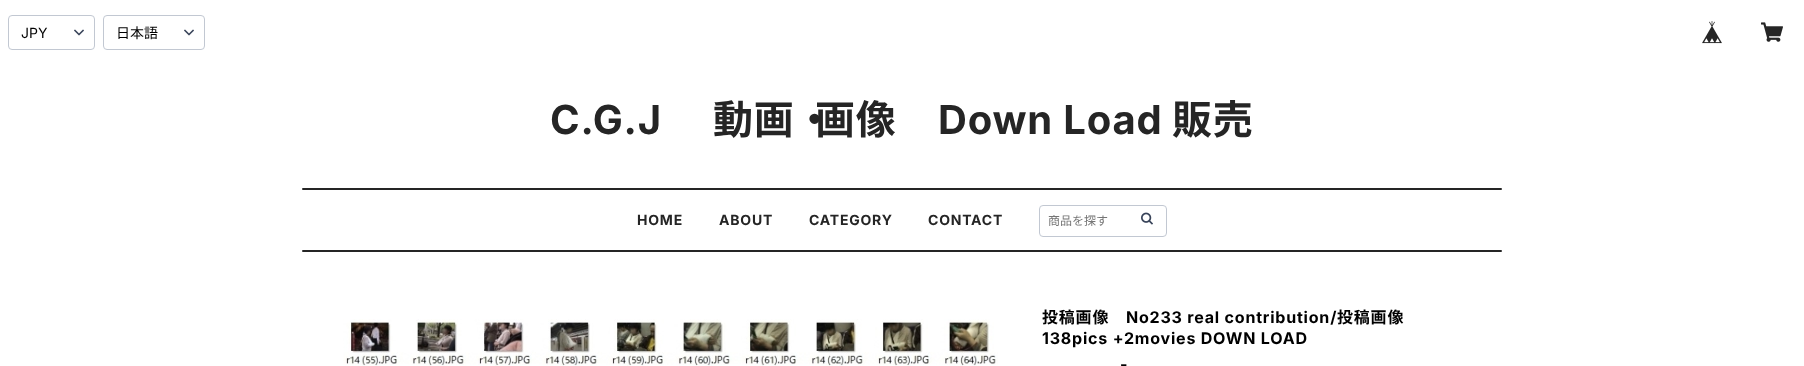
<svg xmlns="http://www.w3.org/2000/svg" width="1804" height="366">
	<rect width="100%" height="100%" fill="#FFFFFF" />
	<rect x="8.5" y="15.5" width="86" height="34" rx="3.5" fill="none" stroke="#C2C8D2" />
	<text x="21" y="38" font-family="Inter" font-size="14" fill="#000000">JPY</text>
	<image x="74" y="29" width="10" height="7" href="assets/img1.png" />
	<rect x="103.5" y="15.5" width="101" height="34" rx="3.5" fill="none" stroke="#C2C8D2" />
	<text x="116" y="38" font-family="Noto Sans JP" font-size="14" fill="#000000">日本語</text>
	<image x="184" y="29" width="10" height="7" href="assets/img1.png" />
	<image x="1702" y="21" width="20" height="23" href="assets/img2.png" />
	<image x="1761" y="22" width="22" height="20" href="assets/img3.png" />
	<text x="550" y="134" font-family="Inter" font-size="40" font-weight="700" letter-spacing="0.8" fill="#252525">C.G.J</text>
	<text x="713" y="134" font-family="Noto Sans JP" font-size="40" font-weight="700" letter-spacing="0.8" fill="#252525">動画・</text>
	<text x="815" y="134" font-family="Noto Sans JP" font-size="40" font-weight="700" letter-spacing="0.8" fill="#252525">画像</text>
	<text x="938" y="134" font-family="Inter" font-size="40" font-weight="700" letter-spacing="0.8" fill="#252525">Down Load</text>
	<text x="1172" y="134" font-family="Noto Sans JP" font-size="40" font-weight="700" letter-spacing="0.8" fill="#252525">販売</text>
	<rect x="302" y="188" width="1200" height="2" rx="1" fill="#252525" />
	<g font-family="Inter" font-size="14" font-weight="700" letter-spacing="0.8" fill="#252525">
		<text x="637" y="225">HOME</text>
		<text x="719" y="225">ABOUT</text>
		<text x="809" y="225">CATEGORY</text>
		<text x="928" y="225">CONTACT</text>
	</g>
	<rect x="1039.5" y="205.5" width="127" height="31" rx="3.5" fill="none" stroke="#C2C8D2" />
	<text x="1048" y="225" font-family="Noto Sans JP" font-size="12" fill="#757575">商品を探す</text>
	<image x="1141" y="212" width="12" height="13" href="assets/img4.png" />
	<rect x="302" y="250" width="1200" height="2" rx="1" fill="#252525" />
	<image x="343" y="319" width="655" height="47" href="assets/img5.png" />
	<text x="1042" y="323" font-family="Noto Sans JP" font-size="16" font-weight="700" letter-spacing="0.8" fill="#000000">投稿画像</text>
	<text x="1126" y="323" font-family="Inter" font-size="16" font-weight="700" letter-spacing="0.8" fill="#000000">No233 real contribution/</text>
	<text x="1337" y="323" font-family="Noto Sans JP" font-size="16" font-weight="700" letter-spacing="0.8" fill="#000000">投稿画像</text>
	<g font-family="Inter" font-size="16" font-weight="700" letter-spacing="0.8" fill="#000000">
		<text x="1042" y="344">138pics +2movies DOWN LOAD</text>
		<text x="1120" y="370">-</text>
	</g>
</svg>
